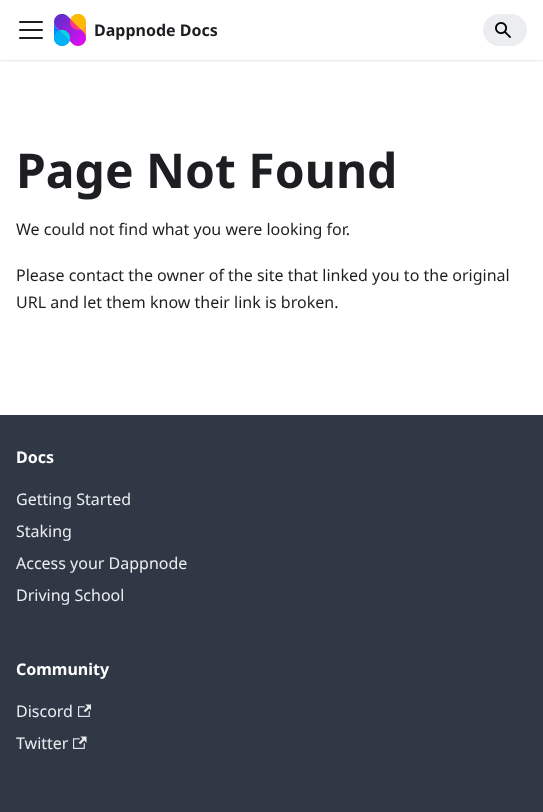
<svg xmlns="http://www.w3.org/2000/svg" width="543" height="812">
	<defs>
		<clipPath id="clip1"><rect x="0" y="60" width="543" height="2" /></clipPath>
	</defs>
	<rect width="100%" height="100%" fill="#FFFFFF" />
	<g clip-path="url(#clip1)">
		<rect x="0" y="1" width="543" height="60" fill="#000000" fill-opacity="0.1" filter="blur(1px)" />
	</g>
	<image x="19" y="21" width="24" height="18" href="assets/img1.png" />
	<image x="54" y="14" width="32" height="32" href="assets/img2.png" />
	<text x="94" y="36" font-family="Noto Sans" font-size="16" font-weight="700" fill="#1C1E21">Dappnode Docs</text>
	<rect x="483" y="14" width="44" height="32" rx="16" fill="#EBEDF0" />
	<image x="495" y="22" width="16" height="16" href="assets/img3.png" />
	<text x="16" y="188" font-family="Noto Sans" font-size="48" font-weight="700" fill="#1C1E21">Page Not Found</text>
	<g font-family="Noto Sans" font-size="16" fill="#1C1E21">
		<text x="16" y="235">We could not find what you were looking for.</text>
		<text x="16" y="281">Please contact the owner of the site that linked you to the original</text>
		<text x="16" y="308">URL and let them know their link is broken.</text>
	</g>
	<rect x="0" y="415" width="543" height="397" fill="#303846" />
	<text x="16" y="463" font-family="Noto Sans" font-size="16" font-weight="700" fill="#FFFFFF">Docs</text>
	<g font-family="Noto Sans" font-size="16" fill="#EBEDF0">
		<text x="16" y="505">Getting Started</text>
		<text x="16" y="537">Staking</text>
		<text x="16" y="569">Access your Dappnode</text>
		<text x="16" y="601">Driving School</text>
	</g>
	<text x="16" y="675" font-family="Noto Sans" font-size="16" font-weight="700" fill="#FFFFFF">Community</text>
	<text x="16" y="717" font-family="Noto Sans" font-size="16" fill="#EBEDF0">Discord</text>
	<image x="78" y="704" width="13" height="13" href="assets/img4.png" />
	<text x="16" y="749" font-family="Noto Sans" font-size="16" fill="#EBEDF0">Twitter</text>
	<image x="73" y="736" width="14" height="13" href="assets/img5.png" />
</svg>
